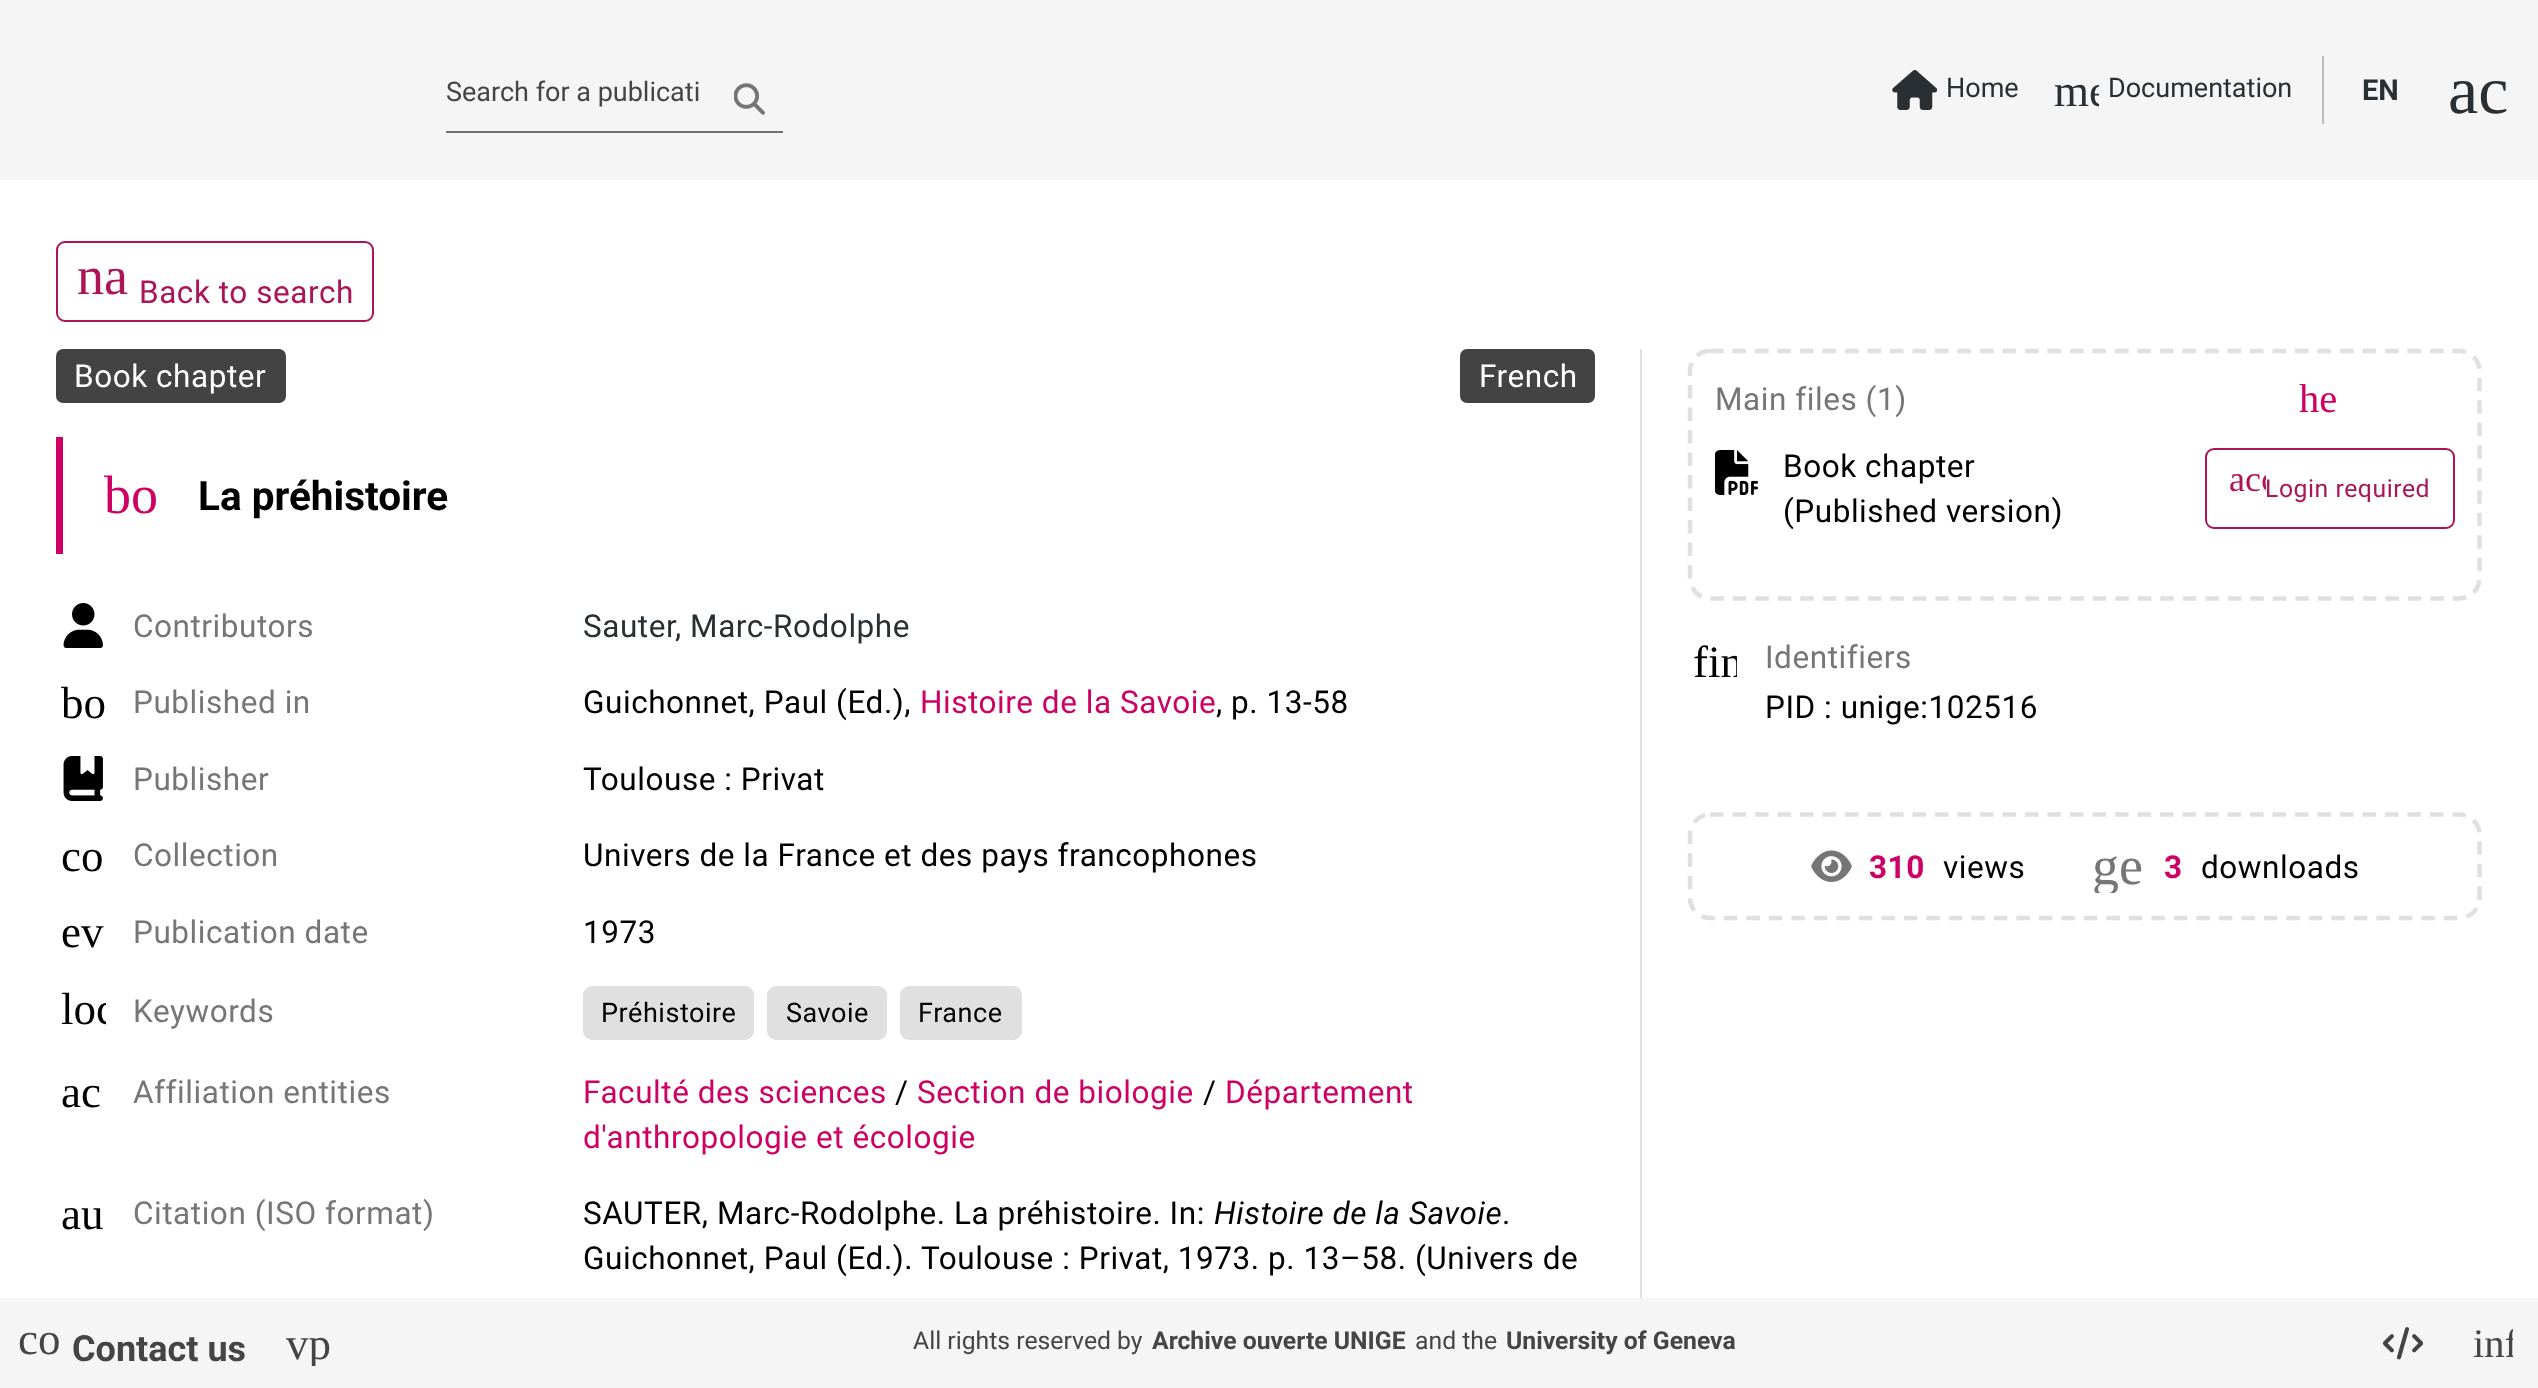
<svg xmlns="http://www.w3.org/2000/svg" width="2538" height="1388">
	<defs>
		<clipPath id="clip1"><rect x="2054" y="68" width="45" height="45" /></clipPath>
		<clipPath id="clip2"><rect x="61" y="986" width="45" height="45" /></clipPath>
		<clipPath id="clip3"><rect x="2230" y="461" width="36" height="36" /></clipPath>
		<clipPath id="clip4"><rect x="1692" y="639" width="45" height="45" /></clipPath>
		<clipPath id="clip5"><rect x="2093" y="839" width="54" height="54" /></clipPath>
		<clipPath id="clip6"><rect x="286" y="1321" width="45" height="45" /></clipPath>
		<clipPath id="clip7"><rect x="2473" y="1323" width="40" height="41" /></clipPath>
	</defs>
	<rect width="100%" height="100%" fill="#FFFFFF" />
	<rect x="0" y="0" width="2538" height="180" fill="#F5F5F5" />
	<text x="446" y="101" font-family="Roboto" font-size="27" fill="#454545">Search for a publicati</text>
	<image x="734" y="83" width="31" height="32" href="assets/img1.png" />
	<rect x="446" y="131" width="337" height="2" fill="#717171" />
	<image x="1892" y="70" width="45" height="40" href="assets/img2.png" />
	<text x="1946" y="97" font-family="Roboto" font-size="27" fill="#292F33">Home</text>
	<g clip-path="url(#clip1)">
		<text x="2054" y="106" font-family="Liberation Serif" font-size="45" fill="#292F33">me</text>
	</g>
	<text x="2108" y="97" font-family="Roboto" font-size="27" fill="#292F33">Documentation</text>
	<rect x="2322" y="56" width="2" height="68" fill="#BDBDBD" />
	<text x="2362" y="100" font-family="Roboto" font-size="29" font-weight="700" fill="#292F33">EN</text>
	<text x="2448" y="113" font-family="Liberation Serif" font-size="68" fill="#292F33">ac</text>
	<rect x="57" y="242" width="316" height="79" rx="8" fill="none" stroke="#AD1457" stroke-width="2" />
	<rect x="59" y="243" width="312" height="77" rx="9" fill="#FFFFFF" />
	<text x="77" y="294" font-family="Liberation Serif" font-size="54" fill="#AD1457">na</text>
	<text x="139" y="303" font-family="Roboto" font-size="31.5" letter-spacing="0.55" fill="#AD1457">Back to search</text>
	<rect x="1640" y="349" width="2" height="949" fill="#E0E0E0" />
	<rect x="56" y="349" width="230" height="54" rx="7" fill="#434343" />
	<text x="74" y="387" font-family="Roboto" font-size="31.5" letter-spacing="0.55" fill="#FFFFFF">Book chapter</text>
	<rect x="1460" y="349" width="135" height="54" rx="7" fill="#434343" />
	<text x="1479" y="387" font-family="Roboto" font-size="31.5" letter-spacing="0.55" fill="#FFFFFF">French</text>
	<rect x="56" y="437" width="7" height="117" fill="#CF0063" />
	<text x="104" y="513" font-family="Liberation Serif" font-size="54" fill="#CF0063">bo</text>
	<text x="198" y="510" font-family="Roboto" font-size="40.5" font-weight="700" fill="#000000">La préhistoire</text>
	<image x="63" y="603" width="40" height="45" href="assets/img3.png" />
	<text x="133" y="637" font-family="Roboto" font-size="31.5" letter-spacing="0.55" fill="#767676">Contributors</text>
	<g font-family="Roboto" font-size="31.5" letter-spacing="0.55" fill="#292F33">
		<text x="583" y="637">Sauter</text>
		<text x="675" y="637">, Marc-Rodolphe</text>
	</g>
	<text x="61" y="718" font-family="Liberation Serif" font-size="45" fill="#000000">bo</text>
	<text x="133" y="713" font-family="Roboto" font-size="31.5" letter-spacing="0.55" fill="#767676">Published in</text>
	<text x="583" y="713" font-family="Roboto" font-size="31.5" letter-spacing="0.55" fill="#000000">Guichonnet, Paul (Ed.),</text>
	<text x="920" y="713" font-family="Roboto" font-size="31.5" letter-spacing="0.55" fill="#CF0063">Histoire de la Savoie</text>
	<text x="1216" y="713" font-family="Roboto" font-size="31.5" letter-spacing="0.55" fill="#000000">, p. 13-58</text>
	<image x="63" y="756" width="40" height="45" href="assets/img4.png" />
	<text x="133" y="790" font-family="Roboto" font-size="31.5" letter-spacing="0.55" fill="#767676">Publisher</text>
	<text x="583" y="790" font-family="Roboto" font-size="31.5" letter-spacing="0.55" fill="#000000">Toulouse : Privat</text>
	<text x="61" y="871" font-family="Liberation Serif" font-size="45" fill="#000000">co</text>
	<text x="133" y="866" font-family="Roboto" font-size="31.5" letter-spacing="0.55" fill="#767676">Collection</text>
	<text x="583" y="866" font-family="Roboto" font-size="31.5" letter-spacing="0.55" fill="#000000">Univers de la France et des pays francophones</text>
	<text x="61" y="947" font-family="Liberation Serif" font-size="45" fill="#000000">ev</text>
	<text x="133" y="943" font-family="Roboto" font-size="31.5" letter-spacing="0.55" fill="#767676">Publication date</text>
	<text x="583" y="943" font-family="Roboto" font-size="31.5" letter-spacing="0.55" fill="#000000">1973</text>
	<g clip-path="url(#clip2)">
		<text x="61" y="1024" font-family="Liberation Serif" font-size="45" fill="#000000">loc</text>
	</g>
	<text x="133" y="1022" font-family="Roboto" font-size="31.5" letter-spacing="0.55" fill="#767676">Keywords</text>
	<rect x="583" y="986" width="171" height="54" rx="9" fill="#E0E0E0" />
	<text x="601" y="1022" font-family="Roboto" font-size="27" letter-spacing="0.55" fill="#000000">Préhistoire</text>
	<rect x="767" y="986" width="120" height="54" rx="9" fill="#E0E0E0" />
	<text x="786" y="1022" font-family="Roboto" font-size="27" letter-spacing="0.55" fill="#000000">Savoie</text>
	<rect x="900" y="986" width="122" height="54" rx="9" fill="#E0E0E0" />
	<text x="918" y="1022" font-family="Roboto" font-size="27" letter-spacing="0.55" fill="#000000">France</text>
	<text x="61" y="1107" font-family="Liberation Serif" font-size="45" fill="#000000">ac</text>
	<text x="133" y="1103" font-family="Roboto" font-size="31.5" letter-spacing="0.55" fill="#767676">Affiliation entities</text>
	<text x="583" y="1103" font-family="Roboto" font-size="31.5" letter-spacing="0.55" fill="#CF0063">Faculté des sciences</text>
	<text x="895" y="1103" font-family="Roboto" font-size="31.5" letter-spacing="0.55" fill="#000000">/</text>
	<text x="917" y="1103" font-family="Roboto" font-size="31.5" letter-spacing="0.55" fill="#CF0063">Section de biologie</text>
	<text x="1203" y="1103" font-family="Roboto" font-size="31.5" letter-spacing="0.55" fill="#000000">/</text>
	<g font-family="Roboto" font-size="31.5" letter-spacing="0.55" fill="#CF0063">
		<text x="1225" y="1103">Département</text>
		<text x="583" y="1148">d'anthropologie et écologie</text>
	</g>
	<text x="61" y="1229" font-family="Liberation Serif" font-size="45" fill="#000000">au</text>
	<text x="133" y="1224" font-family="Roboto" font-size="31.5" letter-spacing="0.55" fill="#767676">Citation (ISO format)</text>
	<text x="583" y="1224" font-family="Roboto" font-size="31.5" letter-spacing="0.55" fill="#000000">SAUTER, Marc-Rodolphe. La préhistoire. In:</text>
	<text x="1214" y="1224" font-family="Roboto" font-size="31.5" font-style="italic" letter-spacing="0.55" fill="#000000">Histoire de la Savoie</text>
	<g font-family="Roboto" font-size="31.5" letter-spacing="0.55" fill="#000000">
		<text x="1502" y="1224">.</text>
		<text x="583" y="1269">Guichonnet, Paul (Ed.). Toulouse : Privat, 1973. p. 13–58. (Univers de</text>
	</g>
	<path d="M1710 351H2459C2470.5 351 2479.5 360 2479.5 371V578C2479.5 589.5 2470.5 598.5 2459 598.5H1710C1699 598.5 1690 589.5 1690 578V371C1690 360 1699 351 1710 351Z" fill="none" stroke="#E0E0E0" stroke-width="4.5" stroke-dasharray="13.5 9" />
	<text x="1715" y="410" font-family="Roboto" font-size="31.5" letter-spacing="0.55" fill="#767676">Main files (1)</text>
	<text x="2299" y="412" font-family="Liberation Serif" font-size="40.5" fill="#CF0063">he</text>
	<image x="1715" y="450" width="44" height="45" href="assets/img5.png" />
	<g font-family="Roboto" font-size="31.5" letter-spacing="0.55" fill="#000000">
		<text x="1783" y="477">Book chapter</text>
		<text x="1783" y="522">(Published version)</text>
	</g>
	<rect x="2206" y="449" width="248" height="79" rx="8" fill="none" stroke="#AD1457" stroke-width="2" />
	<g clip-path="url(#clip3)">
		<text x="2229" y="491" font-family="Liberation Serif" font-size="36" fill="#AD1457">acc</text>
	</g>
	<text x="2265" y="497" font-family="Roboto" font-size="24.75" letter-spacing="0.55" fill="#AD1457">Login required</text>
	<g clip-path="url(#clip4)">
		<text x="1693" y="677" font-family="Liberation Serif" font-size="45" fill="#000000">fin</text>
	</g>
	<text x="1765" y="668" font-family="Roboto" font-size="31.5" letter-spacing="0.55" fill="#767676">Identifiers</text>
	<text x="1765" y="718" font-family="Roboto" font-size="31.5" letter-spacing="0.55" fill="#000000">PID : unige:102516</text>
	<path d="M1710 814.5H2459C2470.5 814.5 2479.5 823.5 2479.5 835V898C2479.5 909 2470.5 918 2459 918H1710C1699 918 1690 909 1690 898V835C1690 823.5 1699 814.5 1710 814.5Z" fill="none" stroke="#E0E0E0" stroke-width="4.5" stroke-dasharray="13.5 9" />
	<image x="1811" y="850" width="41" height="32" href="assets/img6.png" />
	<text x="1869" y="878" font-family="Roboto" font-size="31.5" font-weight="700" letter-spacing="0.55" fill="#CF0063">310</text>
	<text x="1943" y="878" font-family="Roboto" font-size="31.5" letter-spacing="0.55" fill="#000000">views</text>
	<g clip-path="url(#clip5)">
		<text x="2092" y="884" font-family="Liberation Serif" font-size="54" fill="#767676">ge</text>
	</g>
	<text x="2164" y="878" font-family="Roboto" font-size="31.5" font-weight="700" letter-spacing="0.55" fill="#CF0063">3</text>
	<text x="2201" y="878" font-family="Roboto" font-size="31.5" letter-spacing="0.55" fill="#000000">downloads</text>
	<rect x="0" y="1298" width="2538" height="90" fill="#F5F5F5" />
	<text x="18" y="1354" font-family="Liberation Serif" font-size="45" fill="#454545">co</text>
	<text x="72" y="1361" font-family="Roboto" font-size="36" font-weight="700" fill="#454545">Contact us</text>
	<g clip-path="url(#clip6)">
		<text x="286" y="1359" font-family="Liberation Serif" font-size="45" fill="#454545">vp</text>
	</g>
	<text x="913" y="1349" font-family="Roboto" font-size="24.75" fill="#454545">All rights reserved by</text>
	<text x="1152" y="1349" font-family="Roboto" font-size="24.75" font-weight="700" fill="#454545">Archive ouverte UNIGE</text>
	<text x="1415" y="1349" font-family="Roboto" font-size="24.75" fill="#454545">and the</text>
	<text x="1506" y="1349" font-family="Roboto" font-size="24.75" font-weight="700" fill="#454545">University of Geneva</text>
	<image x="2383" y="1327" width="40" height="33" href="assets/img7.png" />
	<g clip-path="url(#clip7)">
		<text x="2473" y="1357" font-family="Liberation Serif" font-size="40.5" fill="#454545">inf</text>
	</g>
</svg>
